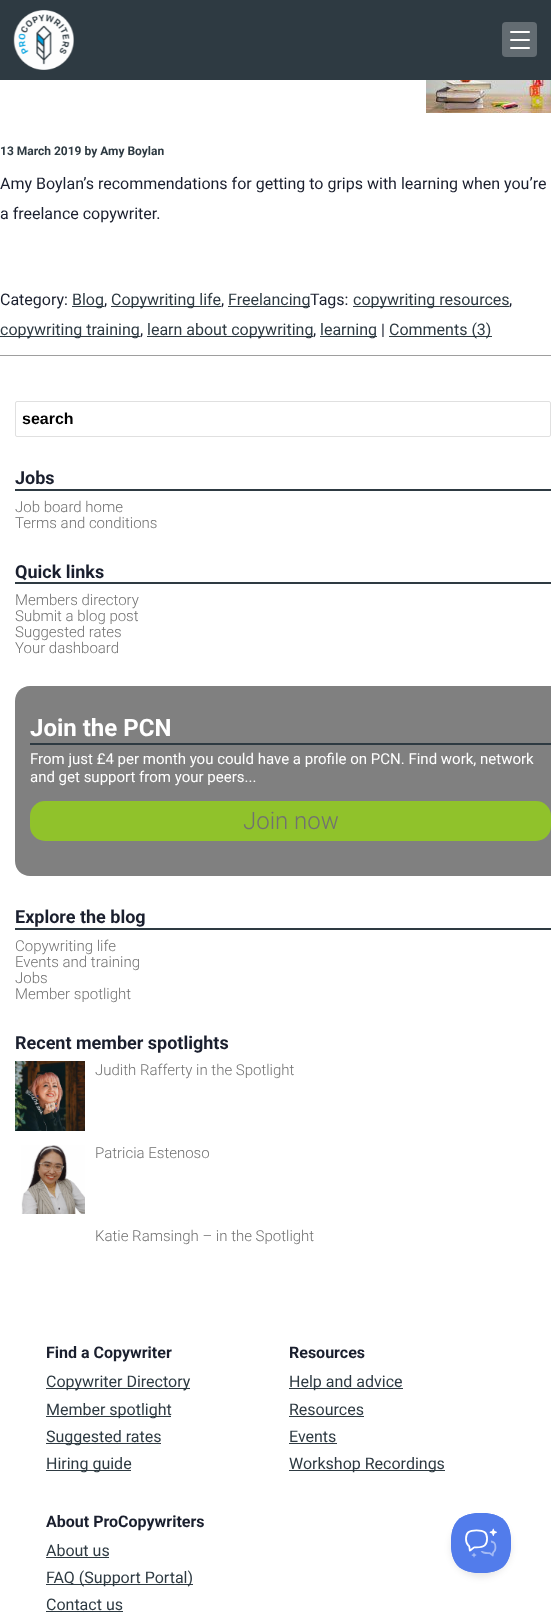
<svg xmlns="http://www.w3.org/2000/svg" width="551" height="1613">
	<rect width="100%" height="100%" fill="#FFFFFF" />
	<rect x="0" y="0" width="551" height="80" fill="#2E3A42" />
	<image x="13" y="10" width="61" height="60" href="assets/img1.png" />
	<rect x="502" y="22" width="35" height="35" rx="4" fill="#636C72" />
	<rect x="510" y="31" width="20" height="2" rx="1" fill="#FFFFFF" />
	<rect x="510" y="39" width="20" height="2" rx="1" fill="#FFFFFF" />
	<rect x="510" y="47" width="20" height="2" rx="1" fill="#FFFFFF" />
	<image x="426" y="80" width="125" height="33" href="assets/img2.png" />
	<text x="0" y="155" font-family="Roboto" font-size="12" font-weight="700" fill="#2E3A42">13 March 2019 by Amy Boylan</text>
	<g font-family="Roboto" font-size="16" fill="#1A1F2E">
		<text x="0" y="189">Amy Boylan’s recommendations for getting to grips with learning when you’re</text>
		<text x="0" y="219">a freelance copywriter.</text>
		<text x="0" y="305">Category:</text>
	</g>
	<rect x="72" y="306" width="32" height="1" fill="#2E3A42" />
	<text x="72" y="305" font-family="Roboto" font-size="16" fill="#2E3A42">Blog</text>
	<text x="104" y="305" font-family="Roboto" font-size="16" fill="#1A1F2E">,</text>
	<rect x="111" y="306" width="110" height="1" fill="#2E3A42" />
	<text x="111" y="305" font-family="Roboto" font-size="16" fill="#2E3A42">Copywriting life</text>
	<text x="221" y="305" font-family="Roboto" font-size="16" fill="#1A1F2E">,</text>
	<rect x="228" y="306" width="82" height="1" fill="#2E3A42" />
	<text x="228" y="305" font-family="Roboto" font-size="16" fill="#2E3A42">Freelancing</text>
	<text x="310" y="305" font-family="Roboto" font-size="16" fill="#1A1F2E">Tags:</text>
	<rect x="353" y="306" width="156" height="1" fill="#2E3A42" />
	<text x="353" y="305" font-family="Roboto" font-size="16" fill="#2E3A42">copywriting resources</text>
	<text x="509" y="305" font-family="Roboto" font-size="16" fill="#1A1F2E">,</text>
	<rect x="0" y="336" width="140" height="1" fill="#2E3A42" />
	<text x="0" y="335" font-family="Roboto" font-size="16" fill="#2E3A42">copywriting training</text>
	<text x="140" y="335" font-family="Roboto" font-size="16" fill="#1A1F2E">,</text>
	<rect x="147" y="336" width="166" height="1" fill="#2E3A42" />
	<text x="147" y="335" font-family="Roboto" font-size="16" fill="#2E3A42">learn about copywriting</text>
	<text x="313" y="335" font-family="Roboto" font-size="16" fill="#1A1F2E">,</text>
	<rect x="320" y="336" width="57" height="1" fill="#2E3A42" />
	<text x="320" y="335" font-family="Roboto" font-size="16" fill="#2E3A42">learning</text>
	<text x="381" y="335" font-family="Roboto" font-size="16" fill="#1A1F2E">|</text>
	<rect x="389" y="336" width="103" height="1" fill="#2E3A42" />
	<text x="389" y="335" font-family="Roboto" font-size="16" fill="#2E3A42">Comments (3)</text>
	<rect x="0" y="355" width="551" height="1" fill="#9E9E9E" />
	<rect x="15.5" y="401.5" width="535" height="35" rx="1.5" fill="none" stroke="#E0E0E0" />
	<text x="22" y="424" font-family="Liberation Sans" font-size="16" font-weight="700" fill="#000000">search</text>
	<rect x="15" y="489" width="536" height="2" fill="#2E3A42" />
	<text x="15" y="484" font-family="Roboto" font-size="18" font-weight="700" fill="#1A1F2E">Jobs</text>
	<g font-family="Roboto" font-size="15" font-weight="300" fill="#717171">
		<text x="15" y="512">Job board home</text>
		<text x="15" y="528">Terms and conditions</text>
	</g>
	<rect x="15" y="582" width="536" height="2" fill="#2E3A42" />
	<text x="15" y="578" font-family="Roboto" font-size="18" font-weight="700" fill="#1A1F2E">Quick links</text>
	<g font-family="Roboto" font-size="15" font-weight="300" fill="#717171">
		<text x="15" y="605">Members directory</text>
		<text x="15" y="621">Submit a blog post</text>
		<text x="15" y="637">Suggested rates</text>
		<text x="15" y="653">Your dashboard</text>
	</g>
	<path d="M30 686H551V876H30C21.5 876 15 869.5 15 861V701C15 692.5 21.5 686 30 686Z" fill="#808080" />
	<rect x="30" y="743" width="521" height="2" fill="#2E3A42" />
	<text x="30" y="736" font-family="Roboto" font-size="24" font-weight="700" fill="#FFFFFF">Join the PCN</text>
	<g font-family="Roboto" font-size="15" fill="#FFFFFF">
		<text x="30" y="764">From just £4 per month you could have a profile on PCN. Find work, network</text>
		<text x="30" y="782">and get support from your peers...</text>
	</g>
	<rect x="30" y="801" width="521" height="40" rx="15" fill="#90C22B" />
	<text x="243" y="829" font-family="Roboto" font-size="24" font-weight="300" fill="#717171">Join now</text>
	<rect x="15" y="928" width="536" height="2" fill="#2E3A42" />
	<text x="15" y="923" font-family="Roboto" font-size="18" font-weight="700" fill="#1A1F2E">Explore the blog</text>
	<g font-family="Roboto" font-size="15" font-weight="300" fill="#717171">
		<text x="15" y="951">Copywriting life</text>
		<text x="15" y="967">Events and training</text>
		<text x="15" y="983">Jobs</text>
		<text x="15" y="999">Member spotlight</text>
	</g>
	<text x="15" y="1049" font-family="Roboto" font-size="18" font-weight="700" fill="#1A1F2E">Recent member spotlights</text>
	<image x="15" y="1061" width="70" height="70" href="assets/img3.png" />
	<text x="95" y="1075" font-family="Roboto" font-size="15" font-weight="300" fill="#717171">Judith Rafferty in the Spotlight</text>
	<image x="21" y="1145" width="64" height="69" href="assets/img4.png" />
	<g font-family="Roboto" font-size="15" font-weight="300" fill="#717171">
		<text x="95" y="1158">Patricia Estenoso</text>
		<text x="95" y="1241">Katie Ramsingh – in the Spotlight</text>
	</g>
	<text x="46" y="1358" font-family="Roboto" font-size="16" font-weight="700" fill="#1A1F2E">Find a Copywriter</text>
	<rect x="46" y="1388" width="144" height="1" fill="#2E3A42" />
	<text x="46" y="1387" font-family="Roboto" font-size="16" fill="#2E3A42">Copywriter Directory</text>
	<rect x="46" y="1416" width="125" height="1" fill="#2E3A42" />
	<text x="46" y="1415" font-family="Roboto" font-size="16" fill="#2E3A42">Member spotlight</text>
	<rect x="46" y="1443" width="115" height="1" fill="#2E3A42" />
	<text x="46" y="1442" font-family="Roboto" font-size="16" fill="#2E3A42">Suggested rates</text>
	<rect x="46" y="1470" width="85" height="1" fill="#2E3A42" />
	<text x="46" y="1469" font-family="Roboto" font-size="16" fill="#2E3A42">Hiring guide</text>
	<text x="289" y="1358" font-family="Roboto" font-size="16" font-weight="700" fill="#1A1F2E">Resources</text>
	<rect x="289" y="1388" width="114" height="1" fill="#2E3A42" />
	<g font-family="Roboto" font-size="16" fill="#2E3A42">
		<text x="289" y="1387">Help and advice</text>
		<text x="289" y="1415">Resources</text>
	</g>
	<rect x="289" y="1416" width="75" height="1" fill="#2E3A42" />
	<text x="289" y="1442" font-family="Roboto" font-size="16" fill="#2E3A42">Events</text>
	<rect x="289" y="1443" width="48" height="1" fill="#2E3A42" />
	<rect x="289" y="1470" width="156" height="1" fill="#2E3A42" />
	<text x="289" y="1469" font-family="Roboto" font-size="16" fill="#2E3A42">Workshop Recordings</text>
	<text x="46" y="1527" font-family="Roboto" font-size="16" font-weight="700" fill="#1A1F2E">About ProCopywriters</text>
	<text x="46" y="1556" font-family="Roboto" font-size="16" fill="#2E3A42">About us</text>
	<rect x="46" y="1557" width="63" height="1" fill="#2E3A42" />
	<rect x="46" y="1584" width="147" height="1" fill="#2E3A42" />
	<g font-family="Roboto" font-size="16" fill="#2E3A42">
		<text x="46" y="1583">FAQ (Support Portal)</text>
		<text x="46" y="1610">Contact us</text>
	</g>
	<rect x="46" y="1611" width="77" height="1" fill="#2E3A42" />
	<rect x="451" y="1517" width="60" height="60" rx="30" fill="#000000" fill-opacity="0.1" filter="blur(3.5px)" />
	<image x="451" y="1513" width="60" height="60" href="assets/img5.png" />
</svg>
